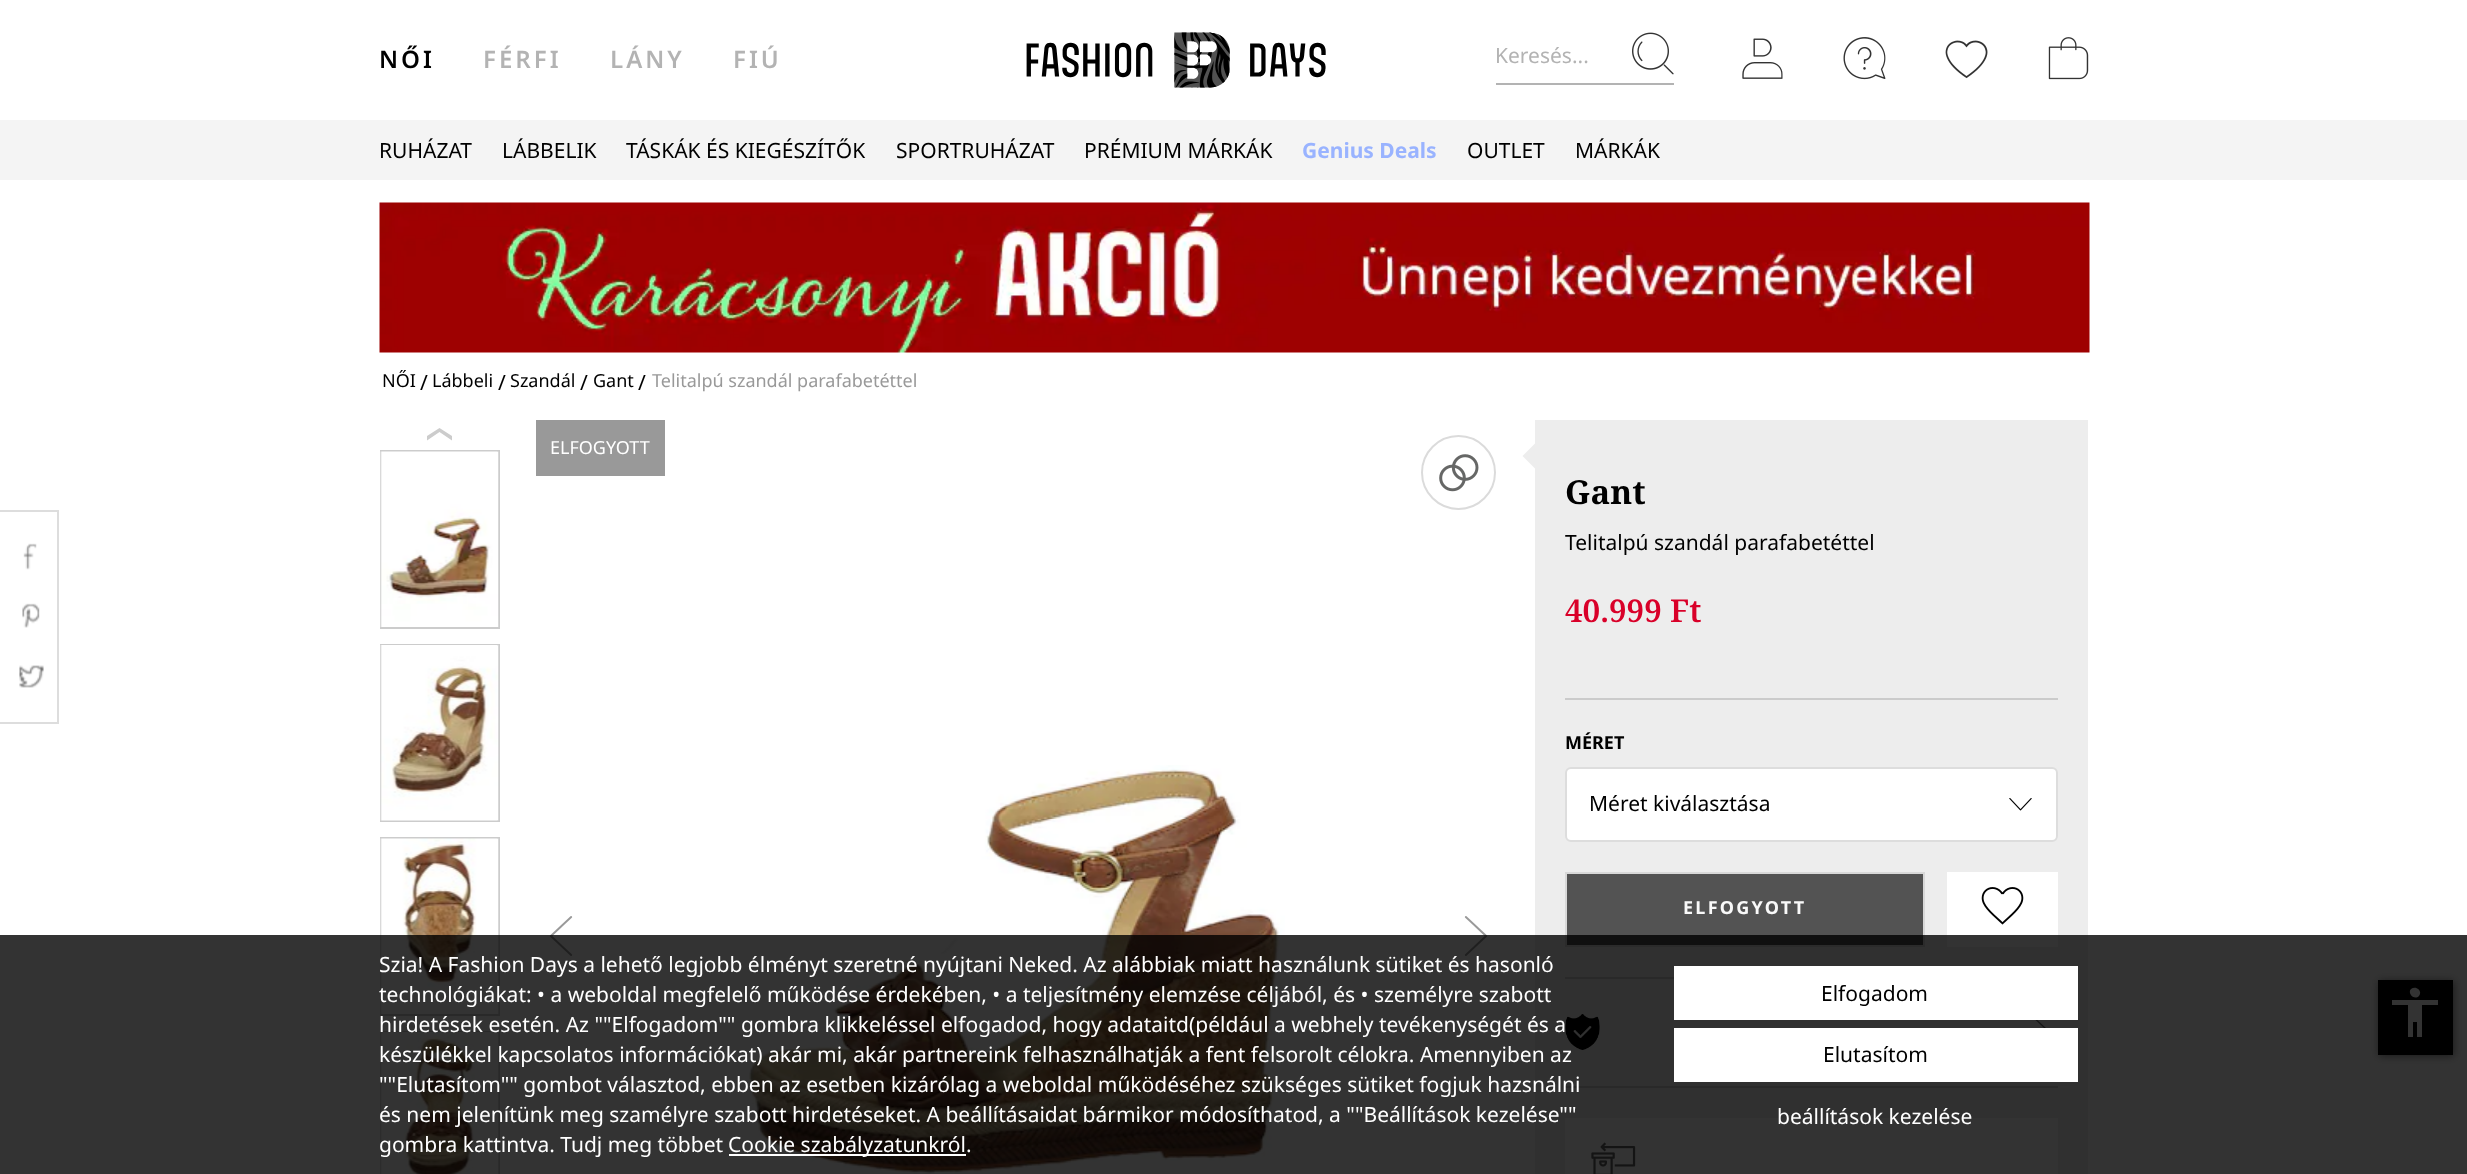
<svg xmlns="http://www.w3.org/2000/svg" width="2467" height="1174">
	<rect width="100%" height="100%" fill="#FFFFFF" />
	<rect x="0" y="510" width="59" height="2" fill="#DDDDDD" />
	<rect x="57" y="510" width="2" height="213" fill="#DDDDDD" />
	<rect x="0" y="722" width="59" height="2" fill="#DDDDDD" />
	<image x="23" y="543" width="14" height="27" href="assets/img1.png" />
	<image x="22" y="603" width="18" height="25" href="assets/img2.png" />
	<image x="19" y="665" width="25" height="23" href="assets/img3.png" />
	<text x="379" y="68" font-family="Noto Sans" font-size="24" font-weight="600" letter-spacing="3" fill="#000000">NŐI</text>
	<g font-family="Noto Sans" font-size="24" font-weight="600" letter-spacing="3" fill="#B3B3B3">
		<text x="483" y="68">FÉRFI</text>
		<text x="610" y="68">LÁNY</text>
		<text x="733" y="68">FIÚ</text>
	</g>
	<image x="1026" y="32" width="300" height="56" href="assets/img4.png" />
	<text x="1495" y="63" font-family="Noto Sans" font-size="21" fill="#B3B3B3">Keresés...</text>
	<image x="1632" y="32" width="42" height="43" href="assets/img5.png" />
	<rect x="1496" y="83" width="178" height="2" fill="#B3B3B3" />
	<image x="1742" y="38" width="41" height="41" href="assets/img6.png" />
	<image x="1843" y="37" width="43" height="43" href="assets/img7.png" />
	<image x="1945" y="40" width="43" height="39" href="assets/img8.png" />
	<image x="2048" y="37" width="41" height="43" href="assets/img9.png" />
	<rect x="0" y="120" width="2467" height="60" fill="#F4F4F4" />
	<g font-family="Noto Sans" font-size="21" fill="#000000">
		<text x="379" y="158">RUHÁZAT</text>
		<text x="502" y="158">LÁBBELIK</text>
		<text x="626" y="158">TÁSKÁK ÉS KIEGÉSZÍTŐK</text>
		<text x="896" y="158">SPORTRUHÁZAT</text>
		<text x="1084" y="158">PRÉMIUM MÁRKÁK</text>
	</g>
	<text x="1302" y="158" font-family="Noto Sans" font-size="21" font-weight="700" fill="#99B3FF">Genius Deals</text>
	<g font-family="Noto Sans" font-size="21" fill="#000000">
		<text x="1467" y="158">OUTLET</text>
		<text x="1575" y="158">MÁRKÁK</text>
	</g>
	<image x="379" y="202" width="1711" height="151" href="assets/img10.png" />
	<text x="382" y="387" font-family="Noto Sans" font-size="18" fill="#000000">NŐI</text>
	<text x="420" y="390" font-family="Noto Sans" font-size="21" fill="#000000">/</text>
	<text x="432" y="387" font-family="Noto Sans" font-size="18" fill="#000000">Lábbeli</text>
	<text x="498" y="390" font-family="Noto Sans" font-size="21" fill="#000000">/</text>
	<text x="510" y="387" font-family="Noto Sans" font-size="18" fill="#000000">Szandál</text>
	<text x="580" y="390" font-family="Noto Sans" font-size="21" fill="#000000">/</text>
	<text x="593" y="387" font-family="Noto Sans" font-size="18" fill="#000000">Gant</text>
	<text x="638" y="390" font-family="Noto Sans" font-size="21" fill="#000000">/</text>
	<text x="652" y="387" font-family="Noto Sans" font-size="18" fill="#999999">Telitalpú szandál parafabetéttel</text>
	<path d="M452 440.5L439.5 432L427 440.5V436L439.5 428L452 436Z" fill="#CCCCCC" />
	<rect x="381" y="451" width="118" height="177" fill="none" stroke="#CCCCCC" stroke-width="2" />
	<image x="380" y="451" width="119" height="176" href="assets/img11.png" />
	<rect x="381" y="645" width="118" height="176" fill="none" stroke="#CCCCCC" stroke-width="2" />
	<image x="380" y="645" width="119" height="176" href="assets/img12.png" />
	<rect x="381" y="838" width="118" height="177" fill="none" stroke="#CCCCCC" stroke-width="2" />
	<image x="380" y="838" width="119" height="176" href="assets/img13.png" />
	<rect x="381" y="1032" width="118" height="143" fill="none" stroke="#CCCCCC" stroke-width="2" />
	<image x="380" y="1032" width="119" height="142" href="assets/img14.png" />
	<rect x="536" y="420" width="129" height="56" fill="#999999" />
	<text x="550" y="454" font-family="Noto Sans" font-size="18" fill="#FFFFFF">ELFOGYOTT</text>
	<circle cx="1458.5" cy="472.5" r="36.5" fill="none" stroke="#DBDBDB" stroke-width="2" />
	<image x="1439" y="454" width="40" height="38" href="assets/img15.png" />
	<image x="549" y="916" width="24" height="40" href="assets/img16.png" />
	<image x="749" y="765" width="536" height="409" href="assets/img17.png" />
	<image x="1464" y="916" width="24" height="40" href="assets/img18.png" />
	<rect x="1535" y="420" width="553" height="754" fill="#EDEDED" />
	<path d="M1536 442.5V469.5L1522.5 456Z" fill="#EDEDED" />
	<text x="1565" y="504" font-family="Noto Serif" font-size="33" font-weight="700" fill="#000000">Gant</text>
	<text x="1565" y="550" font-family="Noto Sans" font-size="21" fill="#000000">Telitalpú szandál parafabetéttel</text>
	<text x="1565" y="622" font-family="Noto Serif" font-size="31.5" font-weight="600" fill="#D90029">40.999 Ft</text>
	<rect x="1565" y="698" width="493" height="2" fill="#CBCBCB" />
	<text x="1565" y="749" font-family="Noto Sans" font-size="18" font-weight="700" fill="#000000">MÉRET</text>
	<rect x="1566" y="768" width="491" height="73" rx="5" fill="#FFFFFF" stroke="#DDDDDD" stroke-width="2" />
	<text x="1589" y="811" font-family="Noto Sans" font-size="21" fill="#000000">Méret kiválasztása</text>
	<image x="2009" y="798" width="23" height="13" href="assets/img19.png" />
	<rect x="1566" y="873" width="358" height="73" fill="#535353" stroke="#D8D8D8" stroke-width="2" />
	<text x="1683" y="914" font-family="Noto Sans" font-size="18" font-weight="700" letter-spacing="2.25" fill="#F9F9F9">ELFOGYOTT</text>
	<rect x="1947" y="872" width="111" height="75" fill="#FFFFFF" />
	<image x="1981" y="887" width="43" height="38" href="assets/img20.png" />
	<rect x="1565" y="977" width="109" height="2" fill="#CBCBCB" />
	<rect x="1565" y="1086" width="493" height="2" fill="#CBCBCB" />
	<image x="1565" y="1014" width="35" height="36" href="assets/img21.png" />
	<image x="2035" y="1020" width="11" height="8" href="assets/img22.png" />
	<rect x="1565" y="1118" width="493" height="56" fill="#FFFFFF" />
	<image x="1591" y="1142" width="45" height="32" href="assets/img23.png" />
	<rect x="2379" y="981" width="75" height="75" fill="#000000" fill-opacity="0.5" filter="blur(4px)" />
	<rect x="2378" y="980" width="75" height="75" fill="#000000" />
	<path d="M2438 1005H2422V1037H2417V1022H2413V1037H2408V1005H2392V1000H2438ZM2411 989C2416 985 2423 991 2419 996C2414 1001 2407 993 2411 989Z" fill="#FFFFFF" />
	<rect x="0" y="935" width="2467" height="239" fill="#000000" fill-opacity="0.8" />
	<g font-family="Noto Sans" font-size="21" fill="#FFFFFF">
		<text x="379" y="972">Szia! A Fashion Days a lehető legjobb élményt szeretné nyújtani Neked. Az alábbiak miatt használunk sütiket és hasonló</text>
		<text x="379" y="1002">technológiákat: • a weboldal megfelelő működése érdekében, • a teljesítmény elemzése céljából, és • személyre szabott</text>
		<text x="379" y="1032">hirdetések esetén. Az ""Elfogadom"" gombra klikkeléssel elfogadod, hogy adataitd(például a webhely tevékenységét és a</text>
		<text x="379" y="1062">készülékkel kapcsolatos információkat) akár mi, akár partnereink felhasználhatják a fent felsorolt célokra. Amennyiben az</text>
		<text x="379" y="1092">""Elutasítom"" gombot választod, ebben az esetben kizárólag a weboldal működéséhez szükséges sütiket fogjuk hazsnálni</text>
		<text x="379" y="1122">és nem jelenítünk meg szamélyre szabott hirdetéseket. A beállításaidat bármikor módosíthatod, a ""Beállítások kezelése""</text>
		<text x="379" y="1152">gombra kattintva. Tudj meg többet</text>
	</g>
	<rect x="729" y="1154" width="237" height="2" fill="#FFFFFF" />
	<text x="728" y="1152" font-family="Noto Sans" font-size="21" fill="#FFFFFF">Cookie szabályzatunkról.</text>
	<rect x="1674" y="966" width="404" height="54" fill="#FFFFFF" />
	<text x="1821" y="1001" font-family="Noto Sans" font-size="21" fill="#000000">Elfogadom</text>
	<rect x="1674" y="1028" width="404" height="54" fill="#FFFFFF" />
	<text x="1823" y="1062" font-family="Noto Sans" font-size="21" fill="#000000">Elutasítom</text>
	<text x="1777" y="1124" font-family="Noto Sans" font-size="21" fill="#FFFFFF">beállítások kezelése</text>
</svg>
